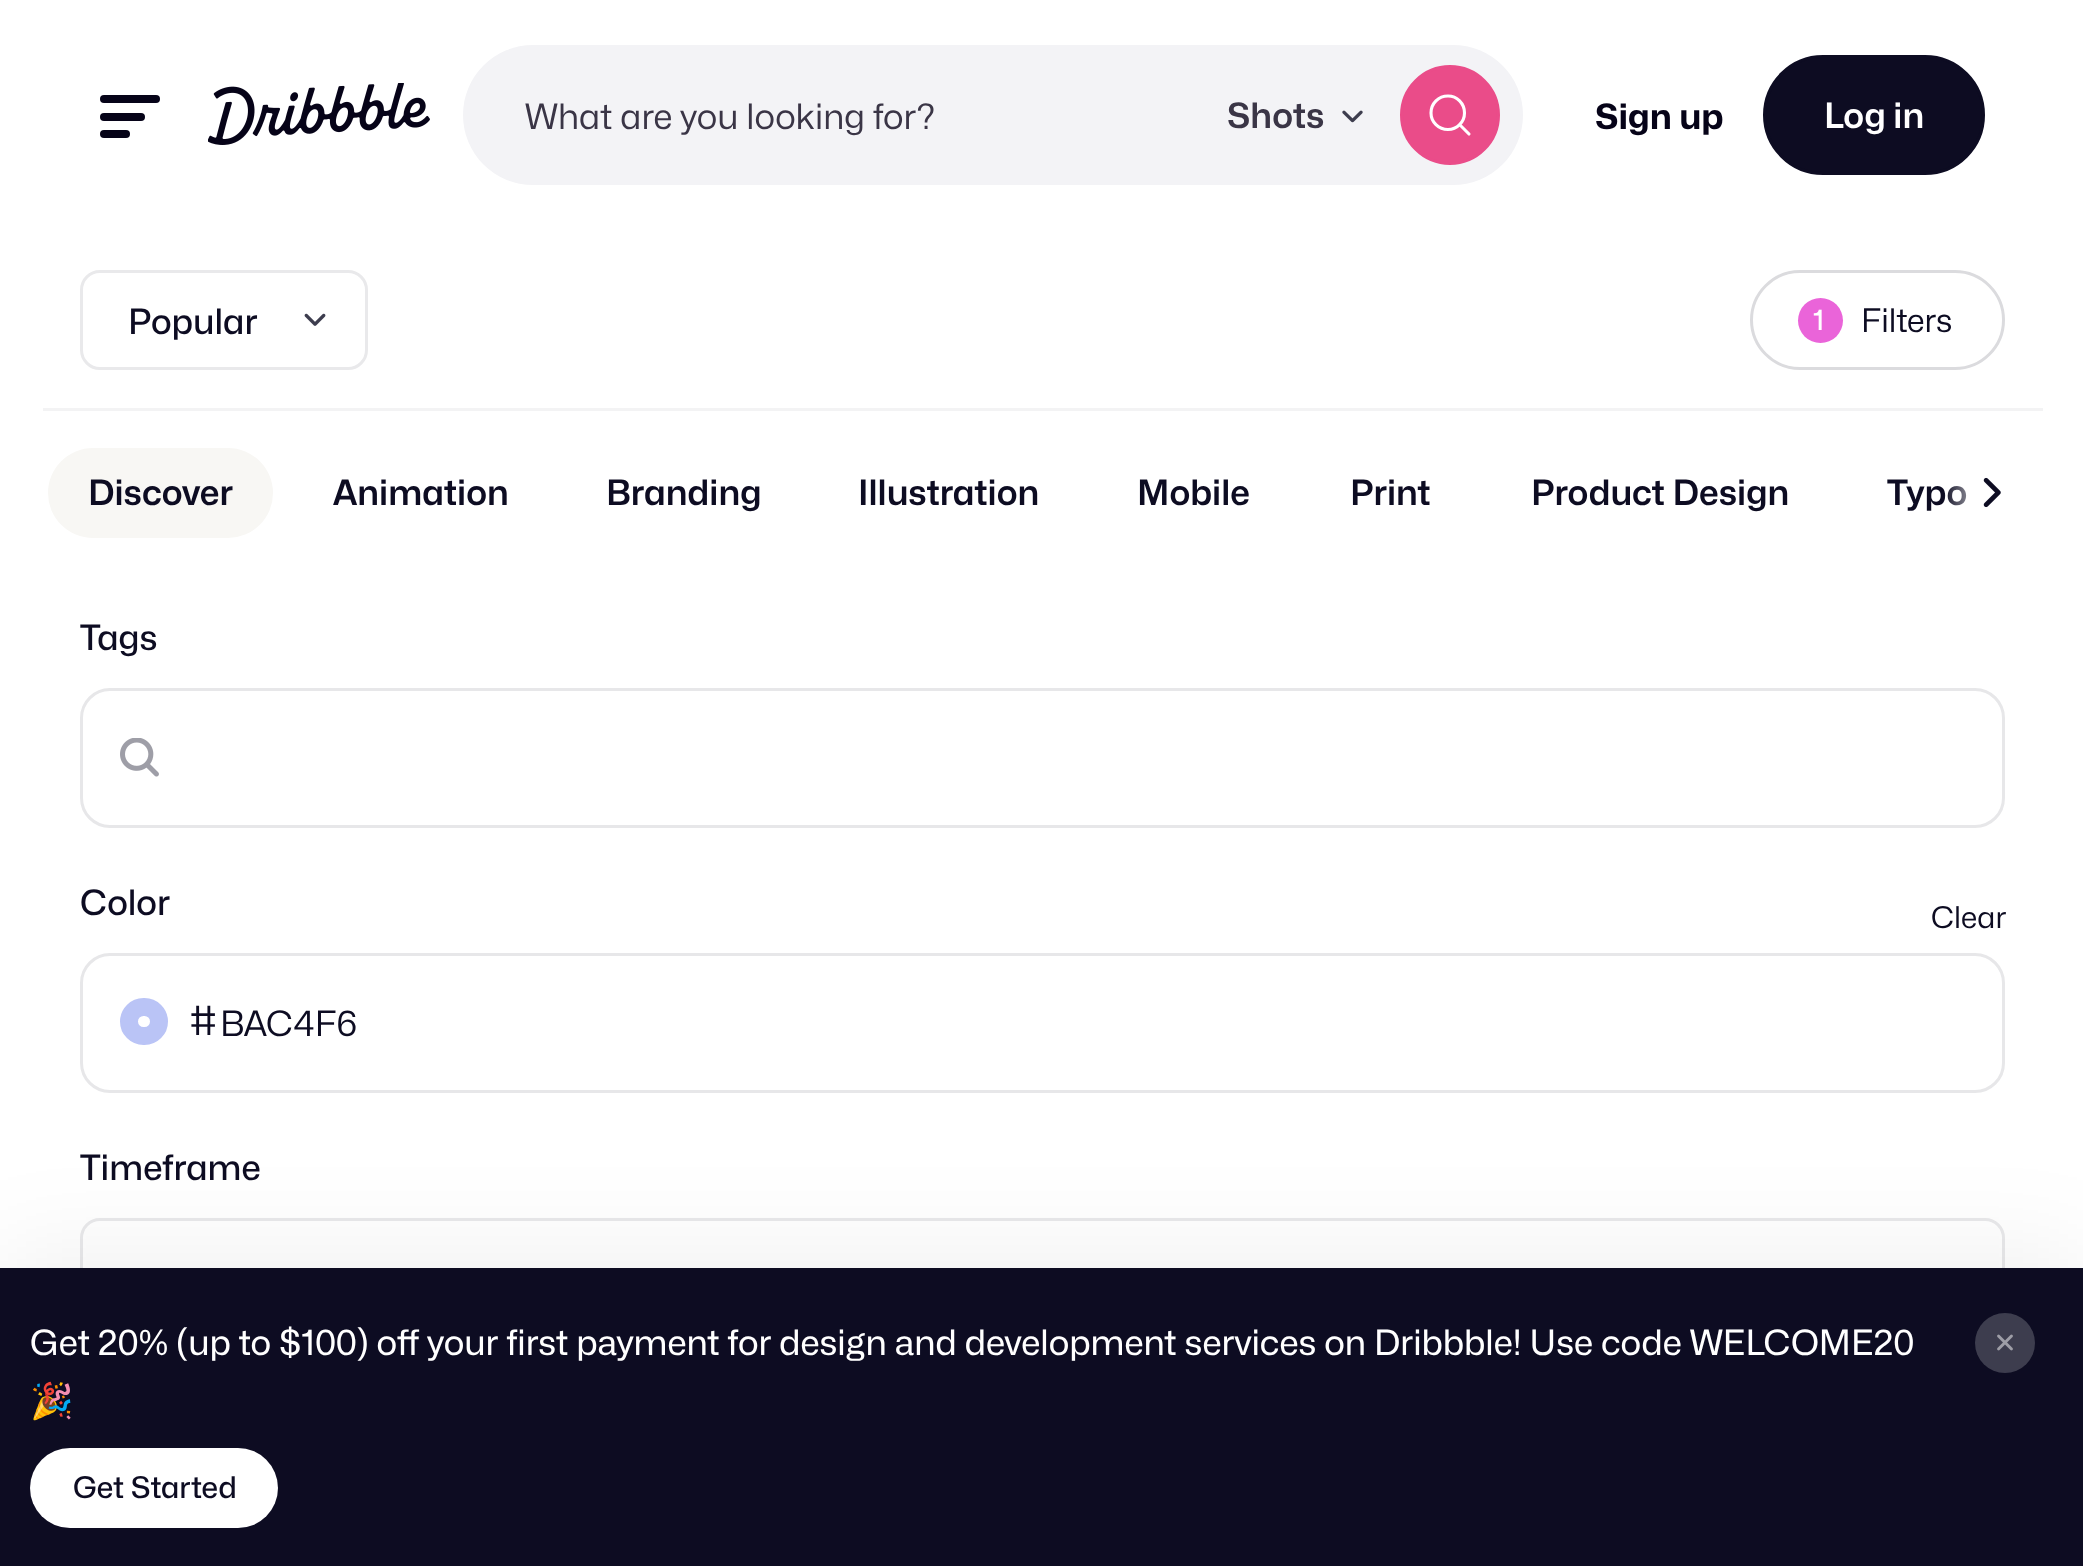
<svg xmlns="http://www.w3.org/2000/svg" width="2083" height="1566">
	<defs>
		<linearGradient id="g1" gradientUnits="userSpaceOnUse" x1="1943" y1="498" x2="2043" y2="498"><stop offset="0" stop-color="#FFFFFF" stop-opacity="0" /><stop offset="0.5" stop-color="#FFFFFF" /></linearGradient>
	</defs>
	<rect width="100%" height="100%" fill="#FFFFFF" />
	<rect x="100" y="95" width="60" height="8" rx="4" fill="#060318" />
	<rect x="100" y="113" width="45" height="8" rx="4" fill="#060318" />
	<rect x="100" y="130" width="30" height="8" rx="4" fill="#060318" />
	<image x="208" y="83" width="222" height="62" href="assets/img1.png" />
	<rect x="463" y="45" width="1060" height="140" rx="70" fill="#F3F3F6" />
	<text x="525" y="129" font-family="Mona Sans" font-size="35" fill="#3A3546">What are you looking for?</text>
	<text x="1227" y="128" font-family="Mona Sans" font-size="35" font-weight="600" fill="#3A3546">Shots</text>
	<image x="1342" y="110" width="21" height="13" href="assets/img2.png" />
	<circle cx="1450" cy="115" r="48.5" fill="#EA4C89" stroke="#EA4C89" stroke-width="3" />
	<path d="M1469 134L1459.5 124.5M1464.5 113C1464.5 122 1457 129.5 1448 129.5C1438.5 129.5 1431 122 1431 113C1431 103.5 1438.5 96 1448 96C1457 96 1464.5 103.5 1464.5 113Z" fill="none" stroke="#FFFFFF" stroke-width="3.1" stroke-linecap="round" stroke-linejoin="round" />
	<text x="1595" y="129" font-family="Mona Sans" font-size="35" font-weight="700" fill="#060318">Sign up</text>
	<rect x="1764.5" y="56.5" width="219" height="117" rx="58.5" fill="#0D0C22" stroke="#0D0C22" stroke-width="3" />
	<text x="1824" y="128" font-family="Mona Sans" font-size="35" font-weight="600" fill="#FFFFFF">Log in</text>
	<rect x="81.5" y="271.5" width="285" height="97" rx="18.5" fill="none" stroke="#E9E9EB" stroke-width="3" />
	<text x="128" y="334" font-family="Mona Sans" font-size="35" font-weight="500" fill="#0D0C22">Popular</text>
	<image x="304" y="313" width="22" height="13" href="assets/img3.png" />
	<rect x="1751.5" y="271.5" width="252" height="97" rx="48.5" fill="none" stroke="#DBDBDE" stroke-width="3" />
	<circle cx="1820.5" cy="320.5" r="22.5" fill="#EA64D9" />
	<text x="1813" y="330" font-family="Mona Sans" font-size="28" font-weight="500" fill="#FFFFFF">1</text>
	<text x="1861" y="332" font-family="Mona Sans" font-size="32.5" fill="#0D0C22">Filters</text>
	<rect x="43" y="408" width="2000" height="3" fill="#F3F3F4" />
	<rect x="48" y="448" width="225" height="90" rx="45" fill="#F8F7F4" />
	<g font-family="Mona Sans" font-size="35" font-weight="600" fill="#0D0C22">
		<text x="88" y="505">Discover</text>
		<text x="333" y="505">Animation</text>
		<text x="606" y="505">Branding</text>
		<text x="858" y="505">Illustration</text>
		<text x="1137" y="505">Mobile</text>
		<text x="1350" y="505">Print</text>
		<text x="1531" y="505">Product Design</text>
		<text x="1887" y="505">Typo</text>
	</g>
	<rect x="1944" y="486" width="23" height="20" fill="url(#g1)" />
	<image x="1983" y="477" width="18" height="31" href="assets/img4.png" />
	<text x="80" y="650" font-family="Mona Sans" font-size="35" font-weight="500" fill="#0D0C22">Tags</text>
	<rect x="81.5" y="689.5" width="1922" height="137" rx="28.5" fill="none" stroke="#E7E7E9" stroke-width="3" />
	<image x="120" y="738" width="39" height="39" href="assets/img5.png" />
	<text x="80" y="915" font-family="Mona Sans" font-size="35" font-weight="500" fill="#0D0C22">Color</text>
	<text x="1931" y="928" font-family="Mona Sans" font-size="30" fill="#0D0C22">Clear</text>
	<rect x="81.5" y="954.5" width="1922" height="137" rx="28.5" fill="none" stroke="#E7E7E9" stroke-width="3" />
	<rect x="129" y="1007" width="30" height="29" rx="14.5" fill="none" stroke="#BAC4F6" stroke-width="18" />
	<text x="190" y="1035" font-family="Mona Sans" font-size="40" fill="#0D0C22">#</text>
	<text x="220" y="1036" font-family="Mona Sans" font-size="35" fill="#0D0C22">BAC4F6</text>
	<text x="80" y="1180" font-family="Mona Sans" font-size="35" font-weight="500" fill="#0D0C22">Timeframe</text>
	<rect x="81.5" y="1219.5" width="1922" height="137" rx="18.5" fill="none" stroke="#E9E9EB" stroke-width="3" />
	<rect x="0" y="1253" width="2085" height="300" fill="#000000" fill-opacity="0.06" filter="blur(50px)" />
	<rect x="0" y="1268" width="2083" height="298" fill="#0D0C22" />
	<text x="30" y="1355" font-family="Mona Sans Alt" font-size="35" fill="#FFFFFF">Get 20% (up to $100) off your first payment for design and development services on Dribbble! Use code WELCOME20</text>
	<text x="30" y="1413" font-family="Noto Color Emoji" font-size="35" fill="#FFFFFF">🎉</text>
	<rect x="30" y="1448" width="248" height="80" rx="40" fill="#FFFFFF" />
	<text x="73" y="1498" font-family="Mona Sans" font-size="30" font-weight="500" fill="#0D0C22">Get Started</text>
	<circle cx="2005" cy="1343" r="30" fill="#3D3D4E" />
	<image x="1997" y="1334" width="16" height="17" href="assets/img6.png" />
</svg>
